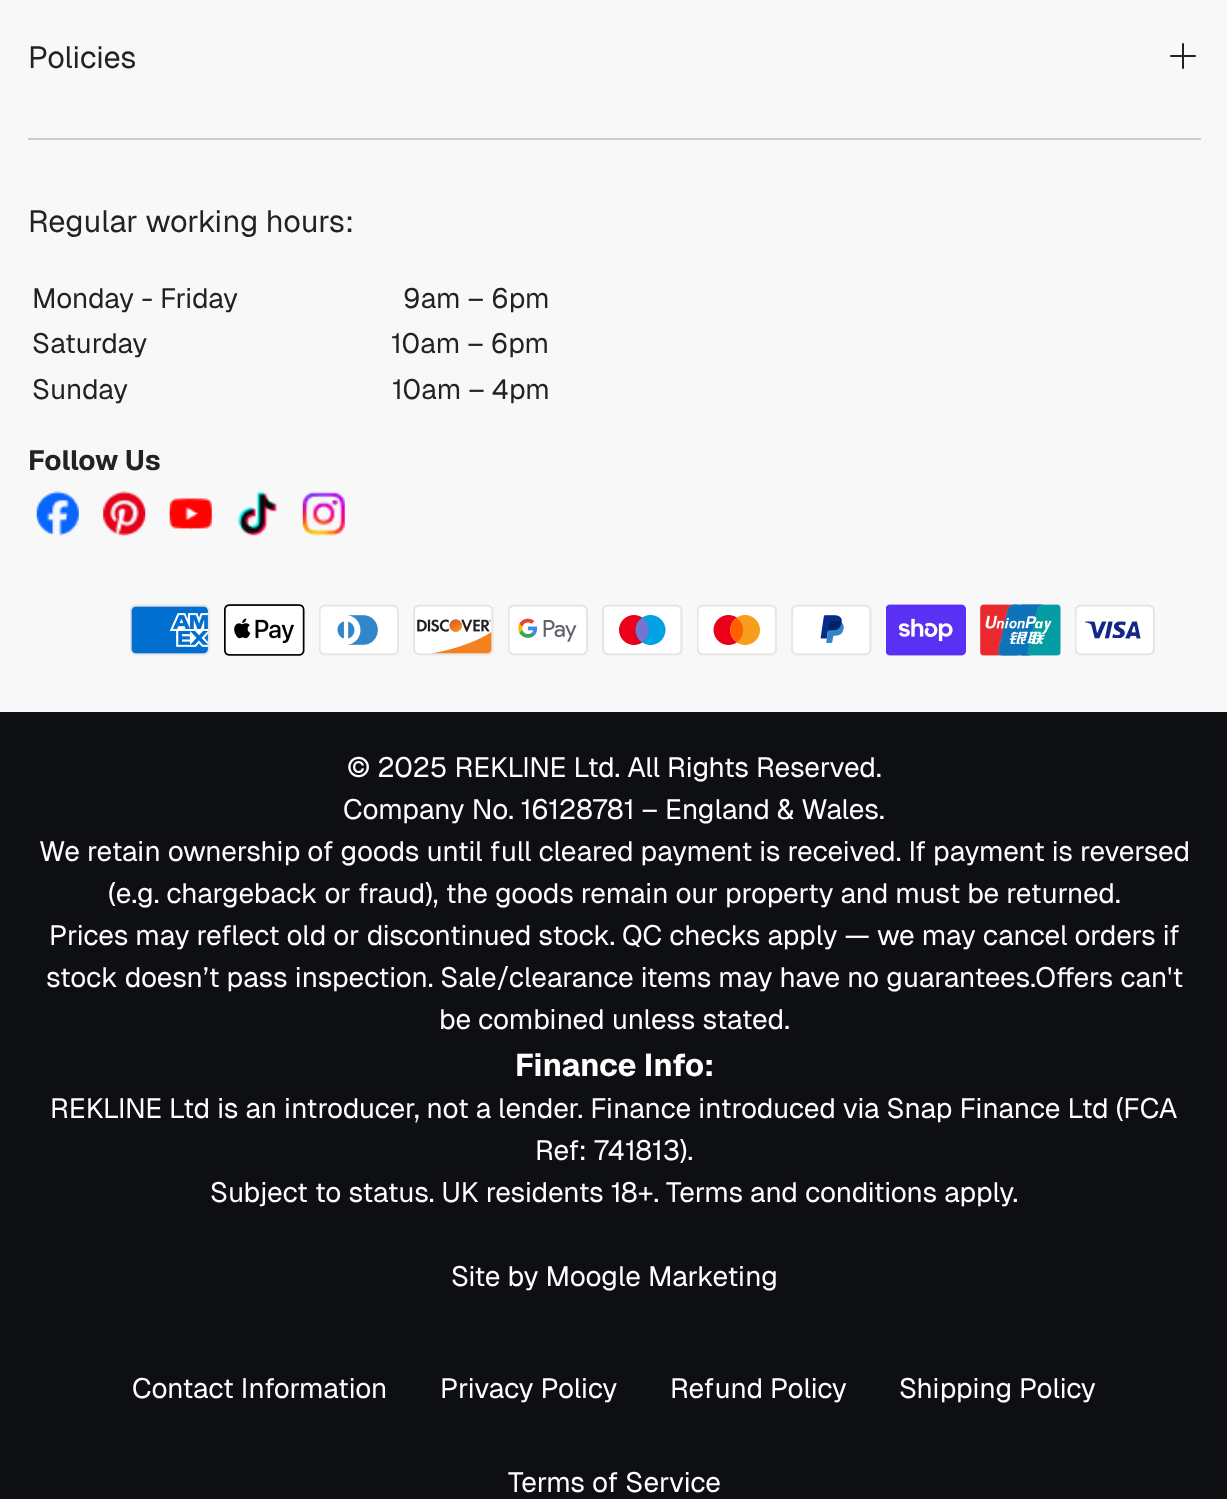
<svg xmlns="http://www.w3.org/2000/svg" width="1227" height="1499">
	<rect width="100%" height="100%" fill="#F8F8F8" />
	<text x="28" y="68" font-family="Geist" font-size="30.75" fill="#222321">Policies</text>
	<rect x="1170" y="55" width="26" height="2" rx="1" fill="#222321" />
	<rect x="1182" y="43" width="2" height="26" rx="1" fill="#222321" />
	<rect x="28" y="138" width="1173" height="2" fill="#CDCDCD" />
	<text x="28" y="232" font-family="Geist" font-size="30.75" fill="#222321">Regular working hours:</text>
	<g font-family="Geist" font-size="28" fill="#222321">
		<text x="32" y="308">Monday - Friday</text>
		<text x="403" y="308">9am – 6pm</text>
		<text x="32" y="353">Saturday</text>
		<text x="391" y="353">10am – 6pm</text>
		<text x="32" y="399">Sunday</text>
		<text x="392" y="399">10am – 4pm</text>
	</g>
	<text x="28" y="470" font-family="Geist" font-size="28" font-weight="700" fill="#222321">Follow Us</text>
	<image x="36" y="491" width="43" height="45" href="assets/img1.png" />
	<image x="103" y="491" width="43" height="45" href="assets/img2.png" />
	<image x="169" y="498" width="43" height="33" href="assets/img3.png" />
	<image x="237" y="491" width="40" height="45" href="assets/img4.png" />
	<image x="302" y="491" width="43" height="45" href="assets/img5.png" />
	<image x="130" y="604" width="80" height="52" href="assets/img6.png" />
	<image x="224" y="604" width="81" height="52" href="assets/img7.png" />
	<image x="319" y="604" width="80" height="52" href="assets/img8.png" />
	<image x="413" y="604" width="81" height="52" href="assets/img9.png" />
	<image x="508" y="604" width="80" height="52" href="assets/img10.png" />
	<image x="602" y="604" width="81" height="52" href="assets/img11.png" />
	<image x="697" y="604" width="80" height="52" href="assets/img12.png" />
	<image x="791" y="604" width="81" height="52" href="assets/img13.png" />
	<image x="886" y="604" width="80" height="52" href="assets/img14.png" />
	<image x="980" y="604" width="81" height="52" href="assets/img15.png" />
	<image x="1075" y="604" width="80" height="52" href="assets/img16.png" />
	<rect x="0" y="712" width="1227" height="787" fill="#0E0F12" />
	<g font-family="Geist" font-size="28" fill="#FFFFFF">
		<text x="347" y="777">© 2025 REKLINE Ltd. All Rights Reserved.</text>
		<text x="343" y="819">Company No. 16128781 – England &amp; Wales.</text>
		<text x="39" y="861">We retain ownership of goods until full cleared payment is received. If payment is reversed</text>
		<text x="108" y="903">(e.g. chargeback or fraud), the goods remain our property and must be returned.</text>
		<text x="49" y="945">Prices may reflect old or discontinued stock. QC checks apply — we may cancel orders if</text>
		<text x="46" y="987">stock doesn’t pass inspection. Sale/clearance items may have no guarantees.Offers can't</text>
		<text x="439" y="1029">be combined unless stated.</text>
	</g>
	<text x="515" y="1076" font-family="Geist" font-size="31.5" font-weight="700" fill="#FFFFFF">Finance Info:</text>
	<g font-family="Geist" font-size="28" fill="#FFFFFF">
		<text x="50" y="1118">REKLINE Ltd is an introducer, not a lender. Finance introduced via Snap Finance Ltd (FCA</text>
		<text x="535" y="1160">Ref: 741813).</text>
		<text x="210" y="1202">Subject to status. UK residents 18+. Terms and conditions apply.</text>
		<text x="451" y="1286">Site by Moogle Marketing</text>
		<text x="132" y="1398">Contact Information</text>
		<text x="440" y="1398">Privacy Policy</text>
		<text x="670" y="1398">Refund Policy</text>
		<text x="899" y="1398">Shipping Policy</text>
		<text x="508" y="1492">Terms of Service</text>
	</g>
</svg>
